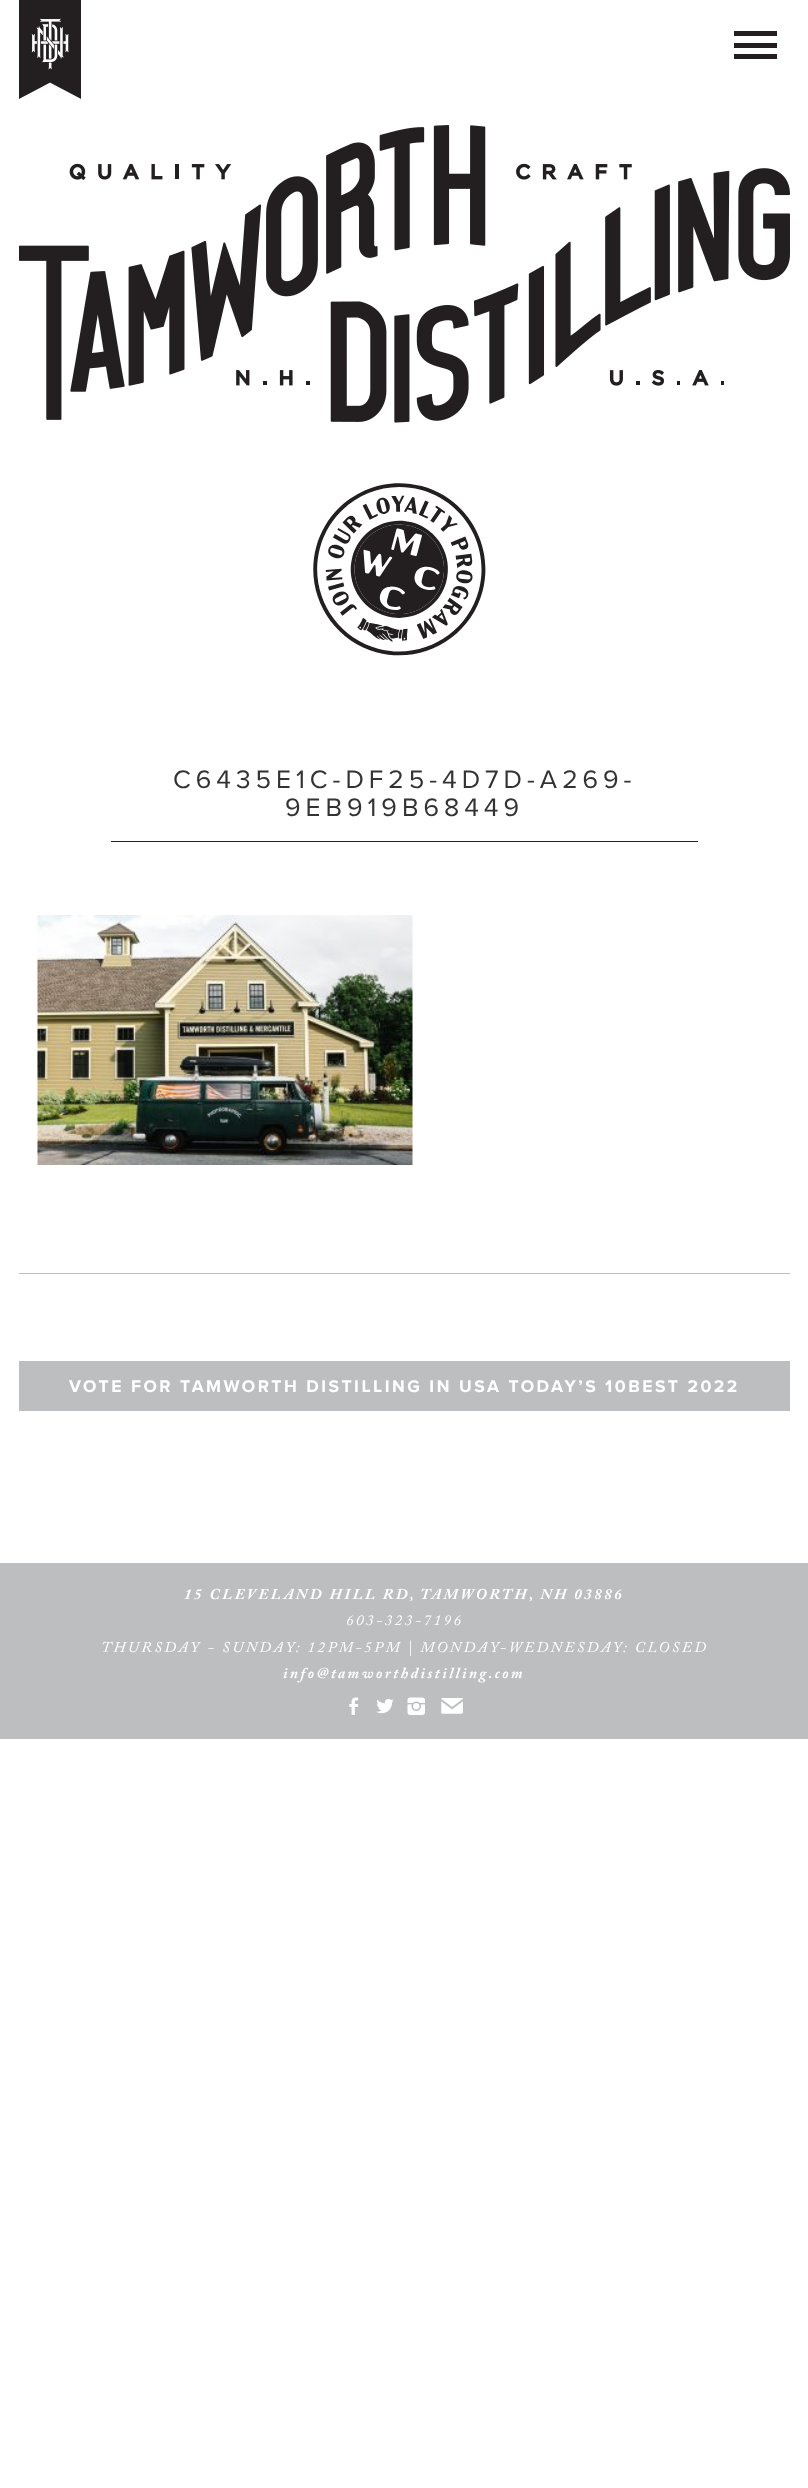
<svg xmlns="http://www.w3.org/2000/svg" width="808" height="2488">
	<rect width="100%" height="100%" fill="#FFFFFF" />
	<image x="19" y="0" width="62" height="99" href="assets/img1.png" />
	<rect x="734" y="31" width="43" height="5" fill="#231F20" />
	<rect x="734" y="43" width="43" height="5" fill="#231F20" />
	<rect x="734" y="54" width="43" height="5" fill="#231F20" />
	<image x="19" y="125" width="771" height="298" href="assets/img2.png" />
	<image x="313" y="483" width="173" height="173" href="assets/img3.png" />
	<rect x="19" y="1273" width="771" height="1" fill="#BCBEC0" />
	<rect x="111" y="841" width="587" height="1" fill="#231F20" />
	<g font-family="Proxima Nova" font-size="26.25" letter-spacing="5" fill="#333333">
		<text x="173" y="788">C6435E1C-DF25-4D7D-A269-</text>
		<text x="285" y="816">9EB919B68449</text>
	</g>
	<image x="37" y="915" width="376" height="250" href="assets/img4.png" />
	<rect x="19" y="1361" width="771" height="50" fill="#BCBEC0" />
	<text x="69" y="1392" font-family="Proxima Nova" font-size="17.5" font-weight="700" letter-spacing="2.5" fill="#FFFFFF">VOTE FOR TAMWORTH DISTILLING IN USA TODAY’S 10BEST 2022</text>
	<rect x="0" y="1563" width="808" height="176" fill="#BCBEC0" />
	<text x="184" y="1599" font-family="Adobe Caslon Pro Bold" font-size="15" font-weight="700" font-style="italic" letter-spacing="2.5" fill="#FFFFFF">15 CLEVELAND HILL RD, TAMWORTH, NH 03886</text>
	<g font-family="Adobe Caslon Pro" font-size="15" font-style="italic" letter-spacing="2.5" fill="#FFFFFF">
		<text x="346" y="1625">603-323-7196</text>
		<text x="101" y="1652">THURSDAY - SUNDAY: 12PM-5PM | MONDAY-WEDNESDAY: CLOSED</text>
	</g>
	<text x="283" y="1678" font-family="Adobe Caslon Pro Bold" font-size="15" font-weight="700" font-style="italic" letter-spacing="2.5" fill="#FFFFFF">info@tamworthdistilling.com</text>
	<image x="349" y="1697" width="10" height="18" href="assets/img5.png" />
	<image x="376" y="1699" width="18" height="15" href="assets/img6.png" />
	<image x="407" y="1697" width="18" height="18" href="assets/img7.png" />
	<image x="441" y="1698" width="22" height="16" href="assets/img8.png" />
</svg>
